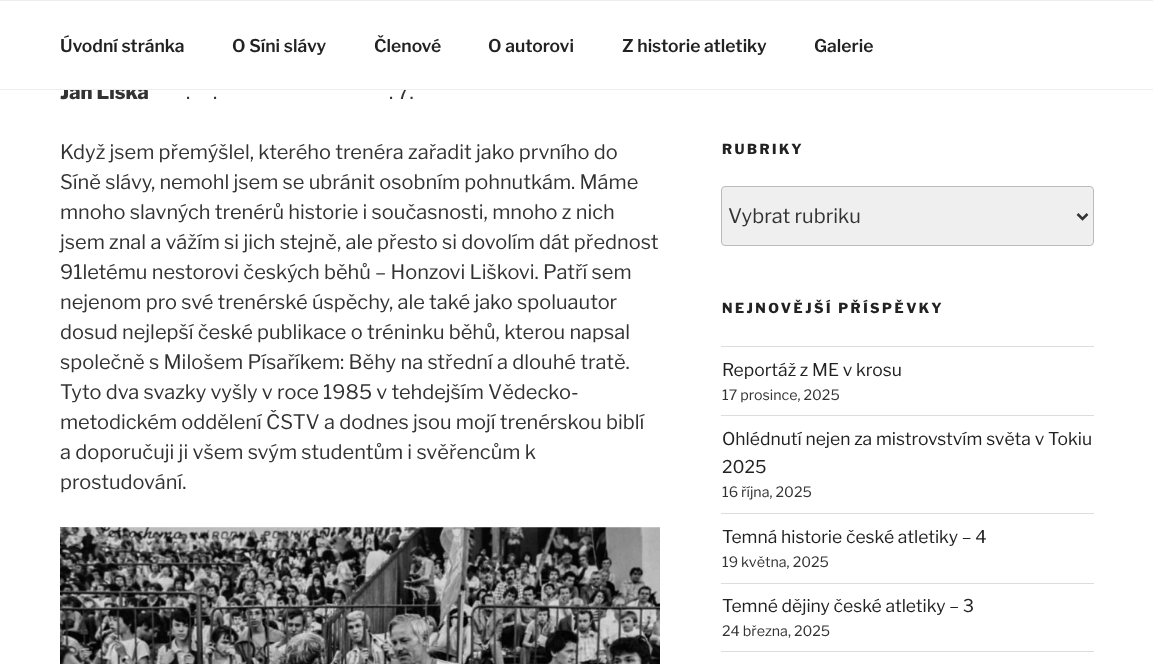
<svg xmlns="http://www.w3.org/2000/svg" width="1153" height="664">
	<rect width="100%" height="100%" fill="#FFFFFF" />
	<text x="60" y="99" font-family="Libre Franklin" font-size="20" font-weight="100" fill="#333333">Jan Liška</text>
	<text x="389" y="99" font-family="'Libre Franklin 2'" font-size="20" font-weight="100" fill="#333333">. 7.</text>
	<rect x="64" y="84" width="345" height="5" fill="#FFFFFF" />
	<rect x="0" y="0" width="1153" height="1" fill="#EEEEEE" />
	<rect x="0" y="89" width="1153" height="1" fill="#EEEEEE" />
	<g font-family="'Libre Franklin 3'" font-size="17.5" font-weight="100" fill="#222222">
		<text x="60" y="52">Úvodní stránka</text>
		<text x="232" y="52">O Síni slávy</text>
		<text x="374" y="52">Členové</text>
		<text x="488" y="52">O autorovi</text>
		<text x="622" y="52">Z historie atletiky</text>
		<text x="814" y="52">Galerie</text>
	</g>
	<g font-family="'Libre Franklin 2'" font-size="20" font-weight="100" fill="#333333">
		<text x="186" y="99">.</text>
		<text x="213" y="99">.</text>
		<text x="60" y="159">Když jsem přemýšlel, kterého trenéra zařadit jako prvního do</text>
		<text x="60" y="189">Síně slávy, nemohl jsem se ubránit osobním pohnutkám. Máme</text>
		<text x="60" y="219">mnoho slavných trenérů historie i současnosti, mnoho z nich</text>
		<text x="60" y="249">jsem znal a vážím si jich stejně, ale přesto si dovolím dát přednost</text>
		<text x="60" y="279">91letému nestorovi českých běhů – Honzovi Liškovi. Patří sem</text>
		<text x="60" y="309">nejenom pro své trenérské úspěchy, ale také jako spoluautor</text>
		<text x="60" y="339">dosud nejlepší české publikace o tréninku běhů, kterou napsal</text>
		<text x="60" y="369">společně s Milošem Písaříkem: Běhy na střední a dlouhé tratě.</text>
		<text x="60" y="399">Tyto dva svazky vyšly v roce 1985 v tehdejším Vědecko-</text>
		<text x="60" y="429">metodickém oddělení ČSTV a dodnes jsou mojí trenérskou biblí</text>
		<text x="60" y="459">a doporučuji ji všem svým studentům i svěřencům k</text>
		<text x="60" y="489">prostudování.</text>
	</g>
	<image x="60" y="527" width="600" height="137" href="assets/img1.png" />
	<text x="722" y="154" font-family="Libre Franklin" font-size="13.75" font-weight="100" letter-spacing="2.5" fill="#222222">RUBRIKY</text>
	<rect x="721.5" y="186.5" width="372" height="59" rx="3.5" fill="#EFEFEF" stroke="#BBBBBB" />
	<path d="M1077.5 214L1082.5 219L1087.5 214" fill="none" stroke="#333333" stroke-width="2.5" />
	<text x="728" y="223" font-family="'Libre Franklin 2'" font-size="20" font-weight="100" fill="#333333">Vybrat rubriku</text>
	<text x="722" y="313" font-family="Libre Franklin" font-size="13.75" font-weight="100" letter-spacing="2.5" fill="#222222">NEJNOVĚJŠÍ PŘÍSPĚVKY</text>
	<rect x="721" y="346" width="373" height="1" fill="#DDDDDD" />
	<rect x="721" y="415" width="373" height="1" fill="#DDDDDD" />
	<text x="722" y="376" font-family="'Libre Franklin 2'" font-size="17.5" font-weight="100" fill="#222222">Reportáž z ME v krosu</text>
	<text x="722" y="400" font-family="'Libre Franklin 2'" font-size="14.25" font-weight="100" fill="#333333">17 prosince, 2025</text>
	<rect x="721" y="513" width="373" height="1" fill="#DDDDDD" />
	<g font-family="'Libre Franklin 2'" font-size="17.5" font-weight="100" fill="#222222">
		<text x="722" y="445">Ohlédnutí nejen za mistrovstvím světa v Tokiu</text>
		<text x="722" y="473">2025</text>
	</g>
	<text x="722" y="497" font-family="'Libre Franklin 2'" font-size="14.25" font-weight="100" fill="#333333">16 října, 2025</text>
	<rect x="721" y="583" width="373" height="1" fill="#DDDDDD" />
	<text x="722" y="543" font-family="'Libre Franklin 2'" font-size="17.5" font-weight="100" fill="#222222">Temná historie české atletiky – 4</text>
	<text x="722" y="567" font-family="'Libre Franklin 2'" font-size="14.25" font-weight="100" fill="#333333">19 května, 2025</text>
	<rect x="721" y="651" width="373" height="1" fill="#DDDDDD" />
	<text x="722" y="612" font-family="'Libre Franklin 2'" font-size="17.5" font-weight="100" fill="#222222">Temné dějiny české atletiky – 3</text>
	<text x="722" y="636" font-family="'Libre Franklin 2'" font-size="14.25" font-weight="100" fill="#333333">24 března, 2025</text>
</svg>
